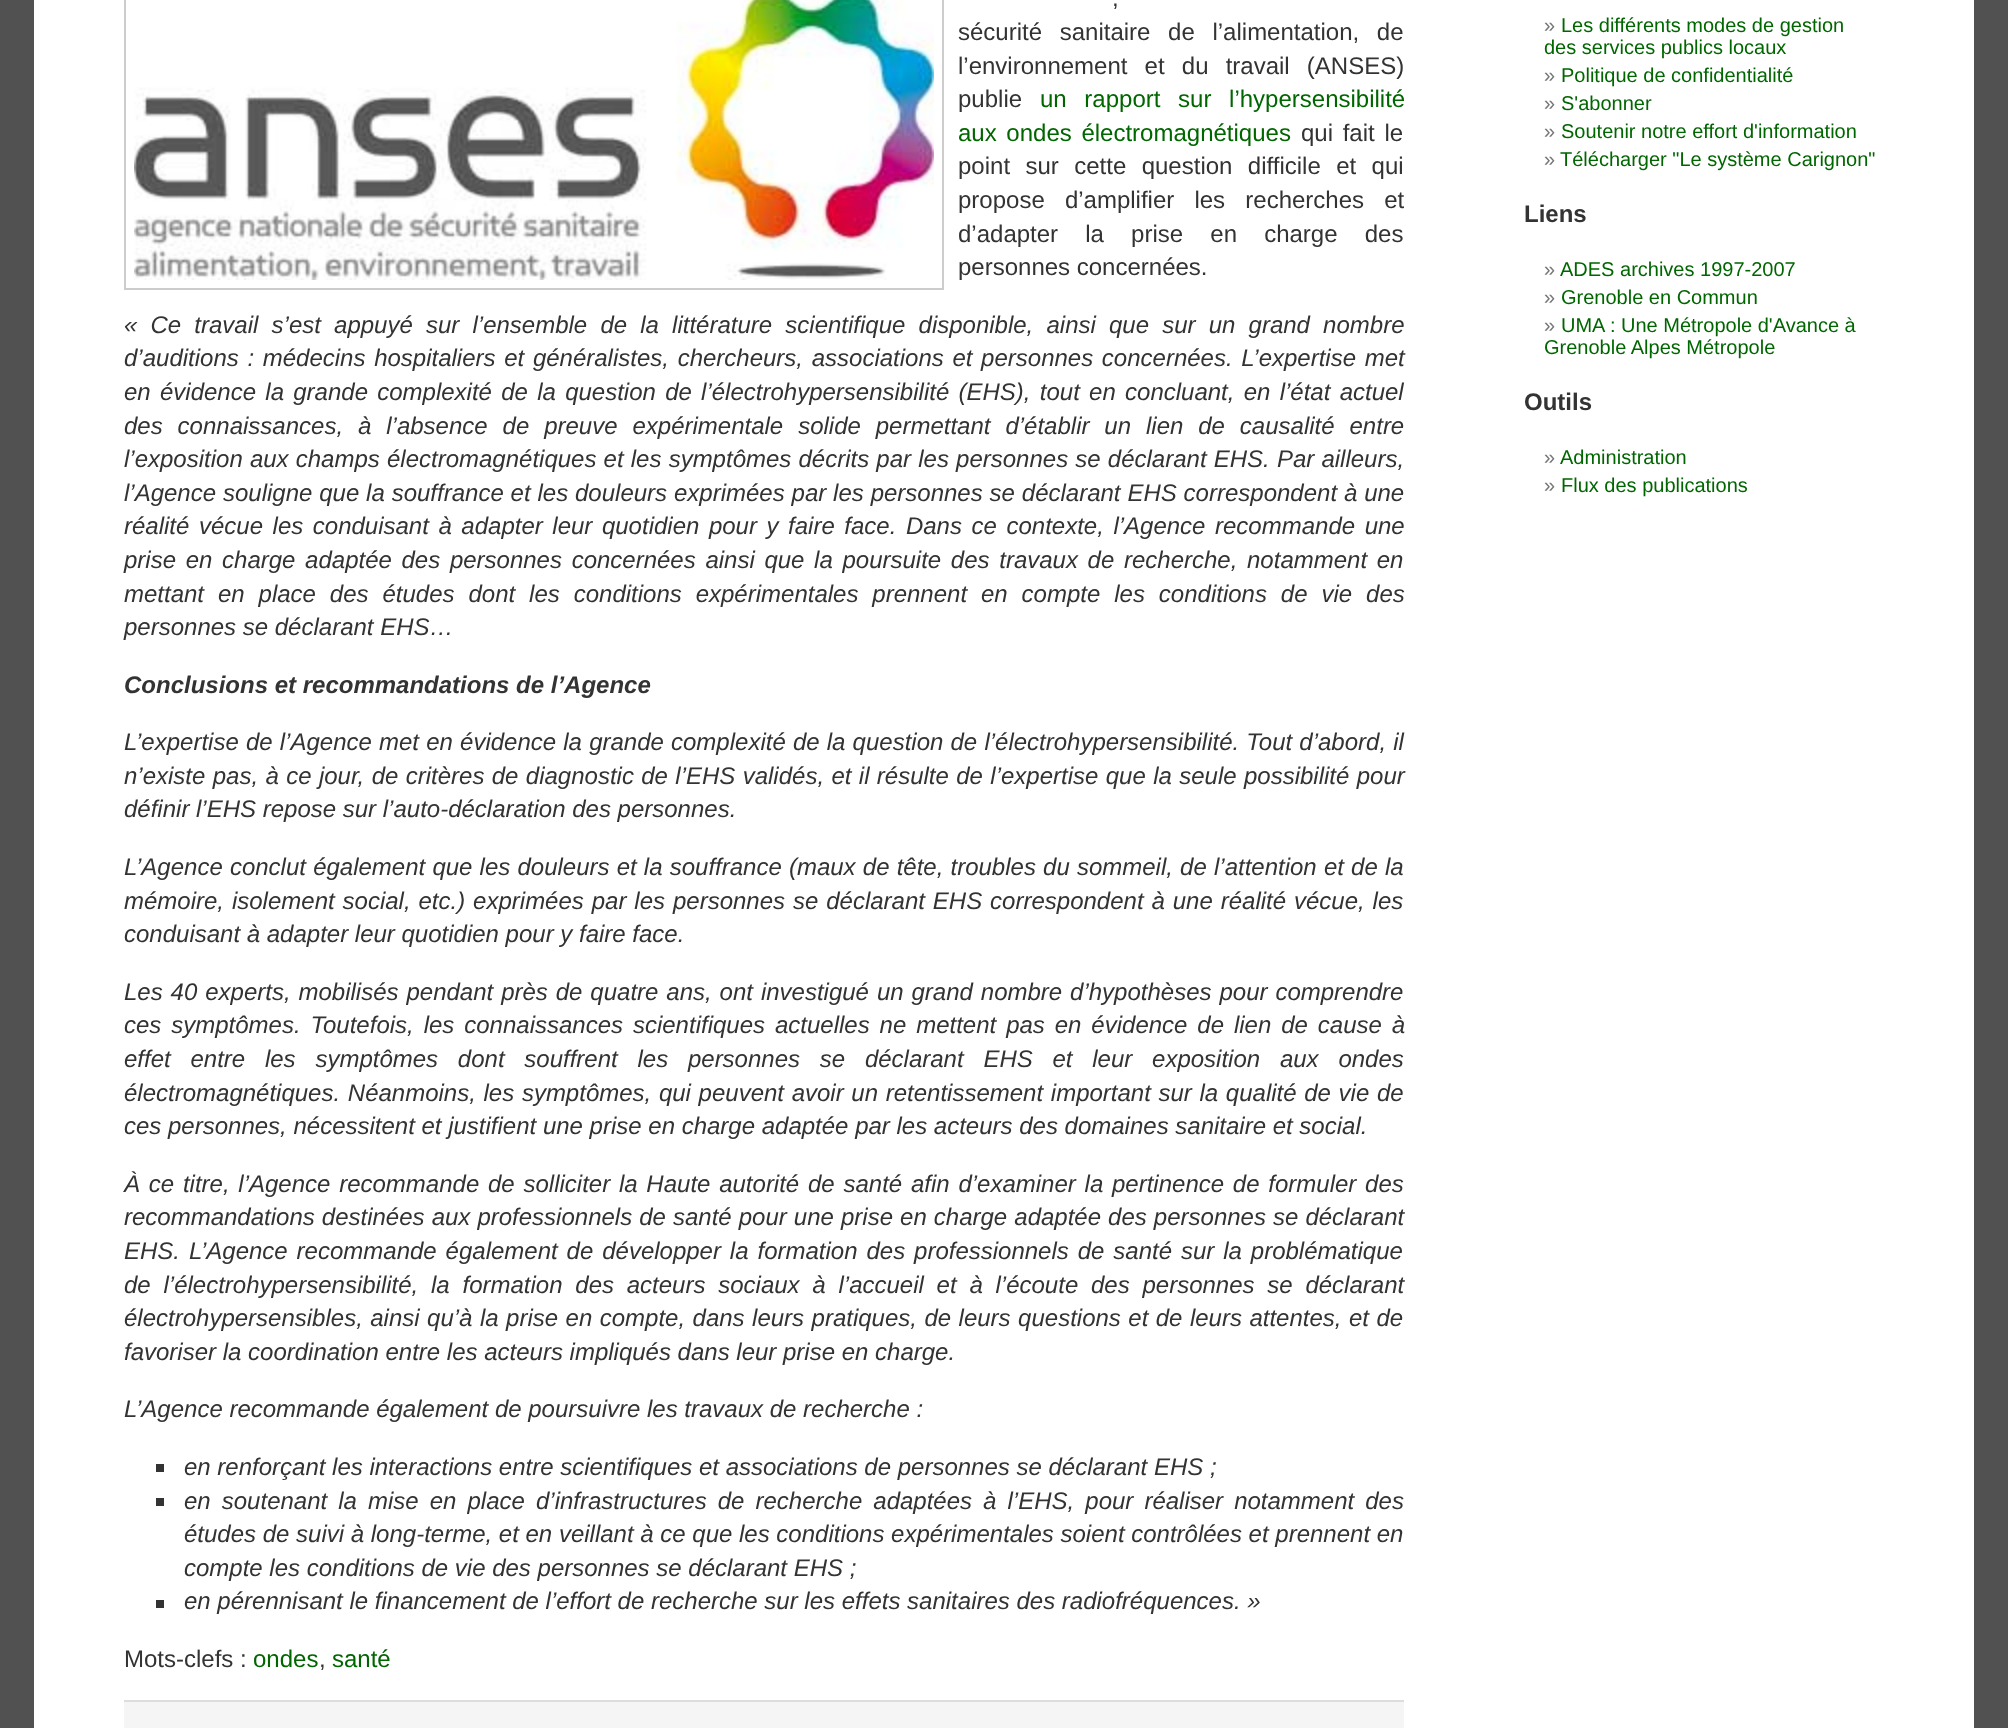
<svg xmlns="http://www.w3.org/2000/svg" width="2008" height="1728">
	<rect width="100%" height="100%" fill="#515151" />
	<rect x="34" y="0" width="1940" height="1728" fill="#FFFFFF" />
	<rect x="125" y="-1" width="818" height="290" fill="none" stroke="#CCCCCC" stroke-width="2" />
	<image x="134" y="0" width="800" height="280" href="assets/img1.png" />
	<g font-family="Liberation Sans" font-size="24" fill="#333333">
		<text x="1112" y="6" word-spacing="17">,</text>
		<text x="958" y="40" word-spacing="11">sécurité sanitaire de l’alimentation, de</text>
		<text x="958" y="74" word-spacing="10.5">l’environnement et du travail (ANSES)</text>
		<text x="958" y="107">publie</text>
	</g>
	<g font-family="Liberation Sans" font-size="24" fill="#006600">
		<text x="1040" y="107" word-spacing="11">un rapport sur l’hypersensibilité</text>
		<text x="958" y="141" word-spacing="3">aux ondes électromagnétiques</text>
	</g>
	<g font-family="Liberation Sans" font-size="24" fill="#333333">
		<text x="1301" y="141" word-spacing="3">qui fait le</text>
		<text x="958" y="174" word-spacing="8.75">point sur cette question difficile et qui</text>
		<text x="958" y="208" word-spacing="13.5">propose d’amplifier les recherches et</text>
		<text x="958" y="242" word-spacing="20.5">d’adapter la prise en charge des</text>
		<text x="958" y="275">personnes concernées.</text>
	</g>
	<g font-family="Liberation Sans" font-size="24" font-style="italic" fill="#333333">
		<text x="124" y="333" word-spacing="6.5">« Ce travail s’est appuyé sur l’ensemble de la littérature scientifique disponible, ainsi que sur un grand nombre</text>
		<text x="124" y="366" word-spacing="2">d’auditions : médecins hospitaliers et généralistes, chercheurs, associations et personnes concernées. L’expertise met</text>
		<text x="124" y="400" word-spacing="2.6">en évidence la grande complexité de la question de l’électrohypersensibilité (EHS), tout en concluant, en l’état actuel</text>
		<text x="124" y="434" word-spacing="8.25">des connaissances, à l’absence de preuve expérimentale solide permettant d’établir un lien de causalité entre</text>
		<text x="124" y="467" word-spacing="0.5">l’exposition aux champs électromagnétiques et les symptômes décrits par les personnes se déclarant EHS. Par ailleurs,</text>
		<text x="124" y="501" word-spacing="0.2">l’Agence souligne que la souffrance et les douleurs exprimées par les personnes se déclarant EHS correspondent à une</text>
		<text x="124" y="534" word-spacing="2.9">réalité vécue les conduisant à adapter leur quotidien pour y faire face. Dans ce contexte, l’Agence recommande une</text>
		<text x="124" y="568" word-spacing="3">prise en charge adaptée des personnes concernées ainsi que la poursuite des travaux de recherche, notamment en</text>
		<text x="124" y="602" word-spacing="7.25">mettant en place des études dont les conditions expérimentales prennent en compte les conditions de vie des</text>
		<text x="124" y="635">personnes se déclarant EHS…</text>
	</g>
	<text x="124" y="693" font-family="Liberation Sans" font-size="24" font-weight="700" font-style="italic" fill="#333333">Conclusions et recommandations de l’Agence</text>
	<g font-family="Liberation Sans" font-size="24" font-style="italic" fill="#333333">
		<text x="124" y="750" word-spacing="0.5">L’expertise de l’Agence met en évidence la grande complexité de la question de l’électrohypersensibilité. Tout d’abord, il</text>
		<text x="124" y="784" word-spacing="0.7">n’existe pas, à ce jour, de critères de diagnostic de l’EHS validés, et il résulte de l’expertise que la seule possibilité pour</text>
		<text x="124" y="817">définir l’EHS repose sur l’auto-déclaration des personnes.</text>
		<text x="124" y="875" word-spacing="0.5">L’Agence conclut également que les douleurs et la souffrance (maux de tête, troubles du sommeil, de l’attention et de la</text>
		<text x="124" y="909" word-spacing="1.25">mémoire, isolement social, etc.) exprimées par les personnes se déclarant EHS correspondent à une réalité vécue, les</text>
		<text x="124" y="942">conduisant à adapter leur quotidien pour y faire face.</text>
		<text x="124" y="1000" word-spacing="1.25">Les 40 experts, mobilisés pendant près de quatre ans, ont investigué un grand nombre d’hypothèses pour comprendre</text>
		<text x="124" y="1033" word-spacing="3.25">ces symptômes. Toutefois, les connaissances scientifiques actuelles ne mettent pas en évidence de lien de cause à</text>
		<text x="124" y="1067" word-spacing="13.1">effet entre les symptômes dont souffrent les personnes se déclarant EHS et leur exposition aux ondes</text>
		<text x="124" y="1101" word-spacing="1">électromagnétiques. Néanmoins, les symptômes, qui peuvent avoir un retentissement important sur la qualité de vie de</text>
		<text x="124" y="1134">ces personnes, nécessitent et justifient une prise en charge adaptée par les acteurs des domaines sanitaire et social.</text>
		<text x="124" y="1192" word-spacing="2.1">À ce titre, l’Agence recommande de solliciter la Haute autorité de santé afin d’examiner la pertinence de formuler des</text>
		<text x="124" y="1225" word-spacing="0.4">recommandations destinées aux professionnels de santé pour une prise en charge adaptée des personnes se déclarant</text>
		<text x="124" y="1259" word-spacing="2.25">EHS. L’Agence recommande également de développer la formation des professionnels de santé sur la problématique</text>
		<text x="124" y="1293" word-spacing="6.1">de l’électrohypersensibilité, la formation des acteurs sociaux à l’accueil et à l’écoute des personnes se déclarant</text>
		<text x="124" y="1326" word-spacing="0.8">électrohypersensibles, ainsi qu’à la prise en compte, dans leurs pratiques, de leurs questions et de leurs attentes, et de</text>
		<text x="124" y="1360">favoriser la coordination entre les acteurs impliqués dans leur prise en charge.</text>
		<text x="124" y="1417">L’Agence recommande également de poursuivre les travaux de recherche :</text>
	</g>
	<rect x="156" y="1464" width="8" height="8" fill="#333333" />
	<text x="184" y="1475" font-family="Liberation Sans" font-size="24" font-style="italic" fill="#333333">en renforçant les interactions entre scientifiques et associations de personnes se déclarant EHS ;</text>
	<rect x="156" y="1498" width="8" height="8" fill="#333333" />
	<g font-family="Liberation Sans" font-size="24" font-style="italic" fill="#333333">
		<text x="184" y="1509" word-spacing="4.4">en soutenant la mise en place d’infrastructures de recherche adaptées à l’EHS, pour réaliser notamment des</text>
		<text x="184" y="1542">études de suivi à long-terme, et en veillant à ce que les conditions expérimentales soient contrôlées et prennent en</text>
		<text x="184" y="1576">compte les conditions de vie des personnes se déclarant EHS ;</text>
	</g>
	<rect x="156" y="1600" width="8" height="8" fill="#333333" />
	<text x="184" y="1609" font-family="Liberation Sans" font-size="24" font-style="italic" fill="#333333">en pérennisant le financement de l’effort de recherche sur les effets sanitaires des radiofréquences. »</text>
	<text x="124" y="1667" font-family="Liberation Sans" font-size="24" fill="#333333">Mots-clefs :</text>
	<text x="253" y="1667" font-family="Liberation Sans" font-size="24" fill="#006600">ondes</text>
	<text x="319" y="1667" font-family="Liberation Sans" font-size="24" fill="#333333">,</text>
	<text x="332" y="1667" font-family="Liberation Sans" font-size="24" fill="#006600">santé</text>
	<rect x="124" y="1702" width="1280" height="26" fill="#F5F5F5" />
	<rect x="124" y="1700" width="1280" height="2" fill="#DDDDDD" />
	<text x="1544" y="32" font-family="Liberation Sans" font-size="20" fill="#777777">»</text>
	<g font-family="Liberation Sans" font-size="20" fill="#006600">
		<text x="1561" y="32">Les différents modes de gestion</text>
		<text x="1544" y="54">des services publics locaux</text>
	</g>
	<text x="1544" y="82" font-family="Liberation Sans" font-size="20" fill="#777777">»</text>
	<text x="1561" y="82" font-family="Liberation Sans" font-size="20" fill="#006600">Politique de confidentialité</text>
	<text x="1544" y="110" font-family="Liberation Sans" font-size="20" fill="#777777">»</text>
	<text x="1561" y="110" font-family="Liberation Sans" font-size="20" fill="#006600">S'abonner</text>
	<text x="1544" y="138" font-family="Liberation Sans" font-size="20" fill="#777777">»</text>
	<text x="1561" y="138" font-family="Liberation Sans" font-size="20" fill="#006600">Soutenir notre effort d'information</text>
	<text x="1544" y="166" font-family="Liberation Sans" font-size="20" fill="#777777">»</text>
	<text x="1560" y="166" font-family="Liberation Sans" font-size="20" fill="#006600">Télécharger "Le système Carignon"</text>
	<text x="1524" y="222" font-family="Liberation Sans" font-size="24" font-weight="700" fill="#333333">Liens</text>
	<text x="1544" y="276" font-family="Liberation Sans" font-size="20" fill="#777777">»</text>
	<text x="1560" y="276" font-family="Liberation Sans" font-size="20" fill="#006600">ADES archives 1997-2007</text>
	<text x="1544" y="304" font-family="Liberation Sans" font-size="20" fill="#777777">»</text>
	<text x="1561" y="304" font-family="Liberation Sans" font-size="20" fill="#006600">Grenoble en Commun</text>
	<text x="1544" y="332" font-family="Liberation Sans" font-size="20" fill="#777777">»</text>
	<g font-family="Liberation Sans" font-size="20" fill="#006600">
		<text x="1561" y="332">UMA : Une Métropole d'Avance à</text>
		<text x="1544" y="354">Grenoble Alpes Métropole</text>
	</g>
	<text x="1524" y="410" font-family="Liberation Sans" font-size="24" font-weight="700" fill="#333333">Outils</text>
	<text x="1544" y="464" font-family="Liberation Sans" font-size="20" fill="#777777">»</text>
	<text x="1560" y="464" font-family="Liberation Sans" font-size="20" fill="#006600">Administration</text>
	<text x="1544" y="492" font-family="Liberation Sans" font-size="20" fill="#777777">»</text>
	<text x="1561" y="492" font-family="Liberation Sans" font-size="20" fill="#006600">Flux des publications</text>
</svg>
